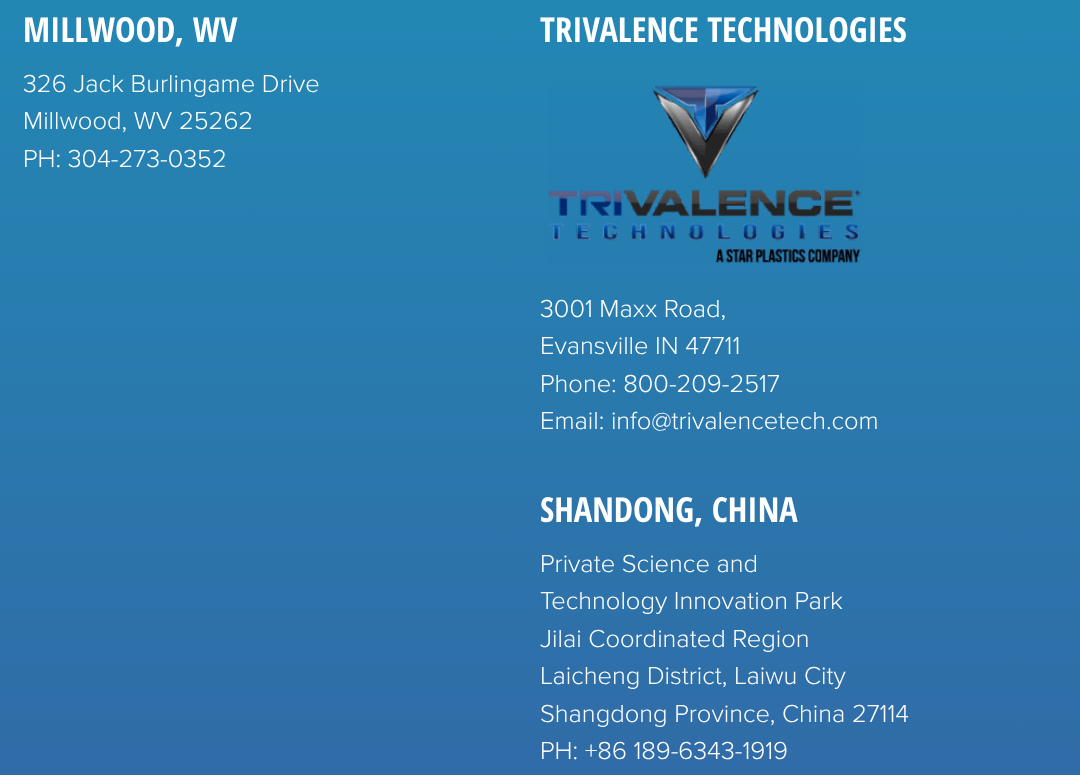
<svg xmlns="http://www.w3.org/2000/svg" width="1080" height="775">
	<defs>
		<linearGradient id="g1" gradientUnits="userSpaceOnUse" x1="540" y1="-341" x2="540" y2="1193"><stop offset="0" stop-color="#1C93BA" /><stop offset="1" stop-color="#385DA0" /></linearGradient>
	</defs>
	<rect width="100%" height="100%" fill="#FFFFFF" />
	<rect x="0" y="0" width="1080" height="775" fill="url(#g1)" />
	<text x="23" y="42" font-family="Open Sans Condensed" font-size="34.5" font-weight="700" fill="#FFFFFF">MILLWOOD, WV</text>
	<g font-family="Proxima Nova" font-size="25.5" font-weight="300" fill="#FFFFFF">
		<text x="23" y="92">326 Jack Burlingame Drive</text>
		<text x="23" y="129">Millwood, WV 25262</text>
		<text x="23" y="167">PH: 304-273-0352</text>
	</g>
	<text x="540" y="42" font-family="Open Sans Condensed" font-size="34.5" font-weight="700" fill="#FFFFFF">TRIVALENCE TECHNOLOGIES</text>
	<image x="548" y="85" width="314" height="179" href="assets/img1.png" />
	<g font-family="Proxima Nova" font-size="25.5" font-weight="300" fill="#FFFFFF">
		<text x="540" y="317">3001 Maxx Road,</text>
		<text x="540" y="354">Evansville IN 47711</text>
		<text x="540" y="392">Phone: 800-209-2517</text>
		<text x="540" y="429">Email: info@trivalencetech.com</text>
	</g>
	<text x="540" y="522" font-family="Open Sans Condensed" font-size="34.5" font-weight="700" fill="#FFFFFF">SHANDONG, CHINA</text>
	<g font-family="Proxima Nova" font-size="25.5" font-weight="300" fill="#FFFFFF">
		<text x="540" y="572">Private Science and</text>
		<text x="540" y="609">Technology Innovation Park</text>
		<text x="540" y="647">Jilai Coordinated Region</text>
		<text x="540" y="684">Laicheng District, Laiwu City</text>
		<text x="540" y="722">Shangdong Province, China 27114</text>
		<text x="540" y="759">PH: +86 189-6343-1919</text>
	</g>
</svg>
